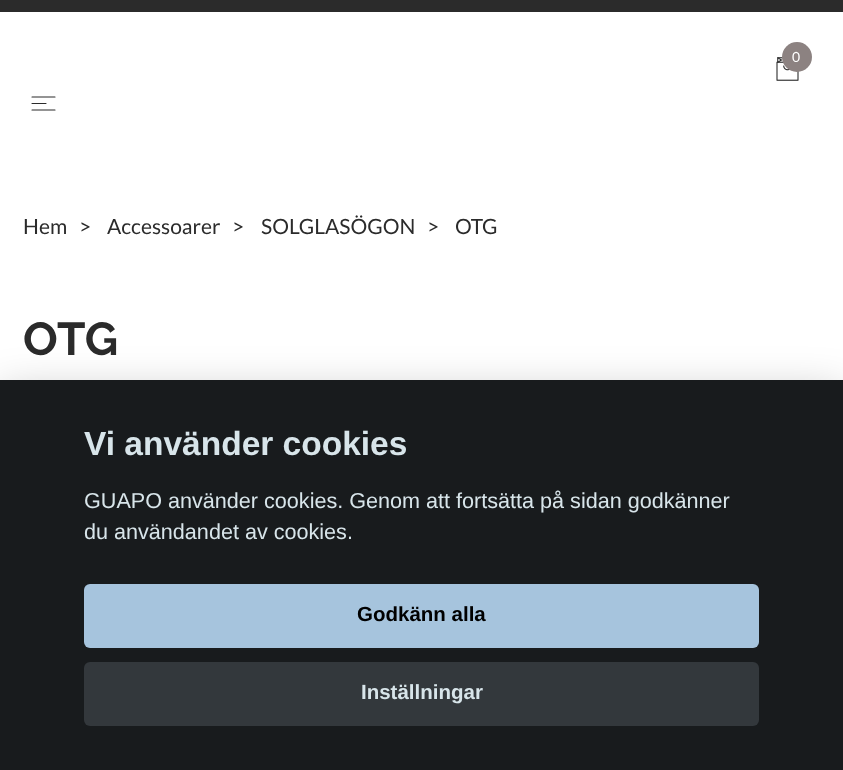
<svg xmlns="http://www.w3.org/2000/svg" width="843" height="770">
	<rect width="100%" height="100%" fill="#FFFFFF" />
	<rect x="0" y="0" width="843" height="12" fill="#2B2B2B" />
	<image x="776" y="57" width="23" height="24" href="assets/img1.png" />
	<circle cx="797" cy="57" r="15" fill="#8C8281" />
	<text x="792" y="62" font-family="Lato" font-size="14" fill="#FFFFFF">0</text>
	<path d="M32 97H55M32 103.5H46M32 110H55" fill="none" stroke="#2B2B2B" stroke-width="1.1" stroke-linecap="round" stroke-linejoin="round" />
	<g font-family="Lato" font-size="21" fill="#2B2B2B">
		<text x="23" y="234">Hem</text>
		<text x="79" y="234">&gt;</text>
		<text x="107" y="234">Accessoarer</text>
		<text x="232" y="234">&gt;</text>
		<text x="261" y="234">SOLGLASÖGON</text>
		<text x="427" y="234">&gt;</text>
		<text x="455" y="234">OTG</text>
	</g>
	<text x="23" y="355" font-family="Raleway" font-size="46" font-weight="700" fill="#2B2B2B">OTG</text>
	<rect x="0" y="395" width="843" height="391" fill="#020203" fill-opacity="0.28" filter="blur(22.5px)" />
	<rect x="0" y="380" width="843" height="390" fill="#181B1D" />
	<text x="84" y="455" font-family="Liberation Sans" font-size="33.5" font-weight="700" fill="#D8E5EA">Vi använder cookies</text>
	<g font-family="Liberation Sans" font-size="21.6" fill="#D8E5EA">
		<text x="84" y="508">GUAPO använder cookies. Genom att fortsätta på sidan godkänner</text>
		<text x="84" y="539">du användandet av cookies.</text>
	</g>
	<rect x="84" y="584" width="675" height="64" rx="6" fill="#A6C4DD" />
	<text x="357" y="621" font-family="Liberation Sans" font-size="20.5" font-weight="700" fill="#000000">Godkänn alla</text>
	<rect x="84" y="662" width="675" height="64" rx="6" fill="#33383C" />
	<text x="361" y="699" font-family="Liberation Sans" font-size="20.5" font-weight="700" fill="#D8E5EA">Inställningar</text>
</svg>
